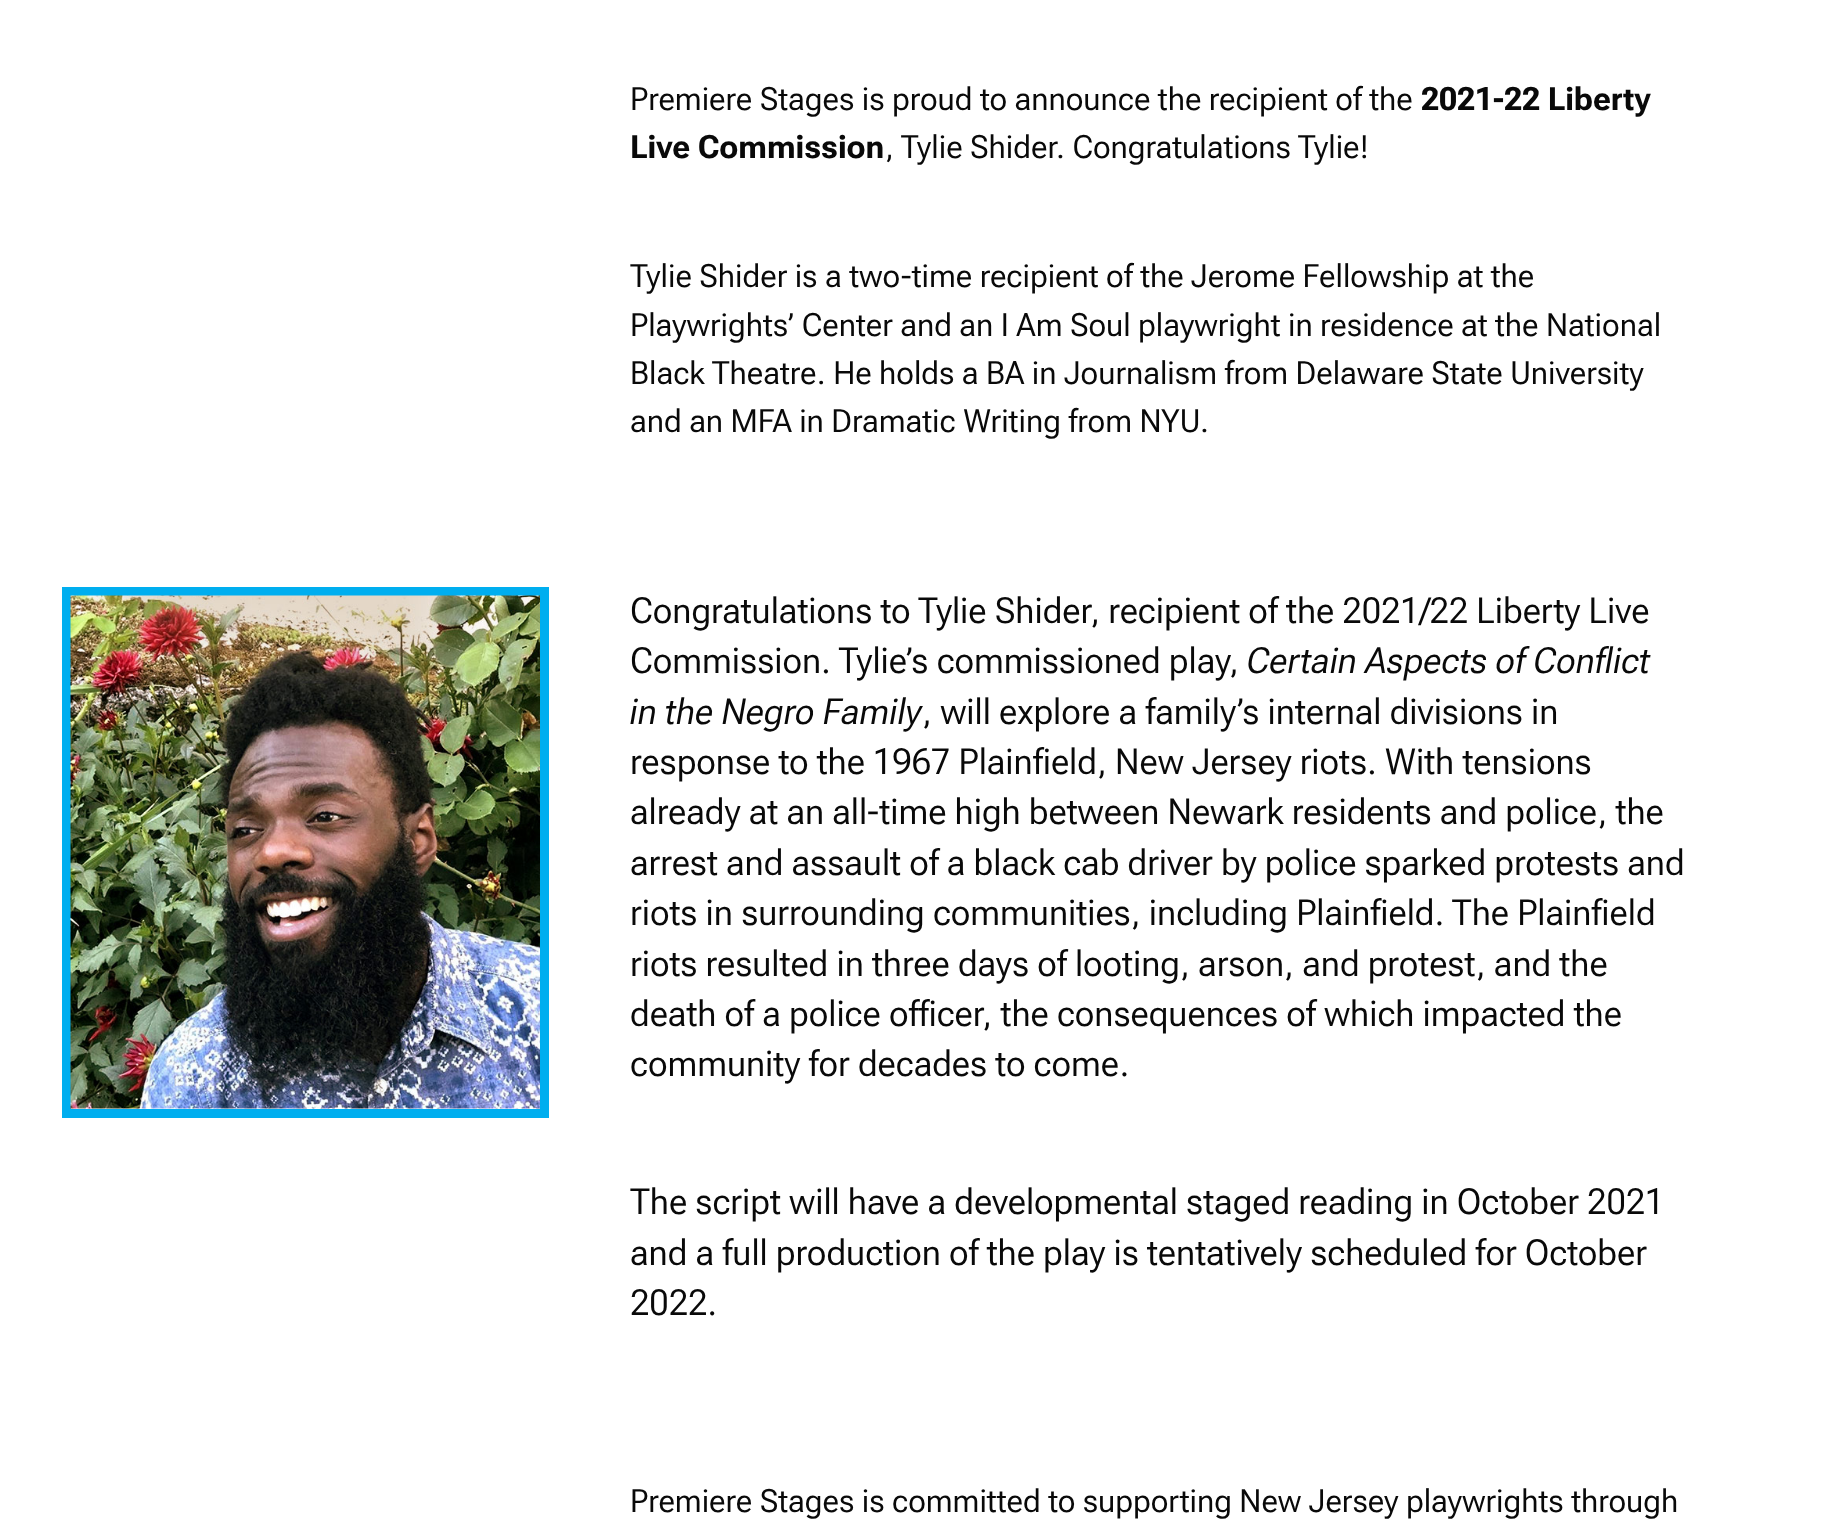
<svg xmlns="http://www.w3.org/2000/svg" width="1832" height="1522">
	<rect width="100%" height="100%" fill="#FFFFFF" />
	<text x="630" y="110" font-family="Roboto Flex" font-size="32.1" fill="#090909">Premiere Stages is proud to announce the recipient of the</text>
	<g font-family="Roboto Flex" font-size="32.1" font-weight="700" fill="#090909">
		<text x="1421" y="110">2021-22 Liberty</text>
		<text x="630" y="158">Live Commission</text>
	</g>
	<g font-family="Roboto Flex" font-size="32.1" fill="#090909">
		<text x="885" y="158">, Tylie Shider. Congratulations Tylie!</text>
		<text x="630" y="287">Tylie Shider is a two-time recipient of the Jerome Fellowship at the</text>
		<text x="630" y="336">Playwrights’ Center and an I Am Soul playwright in residence at the National</text>
		<text x="630" y="384">Black Theatre. He holds a BA in Journalism from Delaware State University</text>
		<text x="630" y="432">and an MFA in Dramatic Writing from NYU.</text>
	</g>
	<rect x="66.5" y="591.5" width="478" height="522" fill="none" stroke="#00AEEF" stroke-width="9" />
	<image x="70" y="595" width="470" height="514" href="assets/img1.png" />
	<g font-family="'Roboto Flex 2'" font-size="36" fill="#090909">
		<text x="630" y="623">Congratulations to Tylie Shider, recipient of the 2021/22 Liberty Live</text>
		<text x="630" y="673">Commission. Tylie’s commissioned play,</text>
	</g>
	<g font-family="Roboto Flex" font-size="36" font-style="italic" fill="#090909">
		<text x="1247" y="673">Certain Aspects of Conflict</text>
		<text x="630" y="724">in the Negro Family</text>
	</g>
	<g font-family="'Roboto Flex 2'" font-size="36" fill="#090909">
		<text x="922" y="724">, will explore a family’s internal divisions in</text>
		<text x="630" y="774">response to the 1967 Plainfield, New Jersey riots. With tensions</text>
		<text x="630" y="824">already at an all-time high between Newark residents and police, the</text>
		<text x="630" y="875">arrest and assault of a black cab driver by police sparked protests and</text>
		<text x="630" y="925">riots in surrounding communities, including Plainfield. The Plainfield</text>
		<text x="630" y="976">riots resulted in three days of looting, arson, and protest, and the</text>
		<text x="630" y="1026">death of a police officer, the consequences of which impacted the</text>
		<text x="630" y="1076">community for decades to come.</text>
		<text x="630" y="1214">The script will have a developmental staged reading in October 2021</text>
		<text x="630" y="1265">and a full production of the play is tentatively scheduled for October</text>
		<text x="630" y="1315">2022.</text>
	</g>
	<text x="630" y="1512" font-family="Roboto Flex" font-size="32.1" fill="#090909">Premiere Stages is committed to supporting New Jersey playwrights through</text>
</svg>
